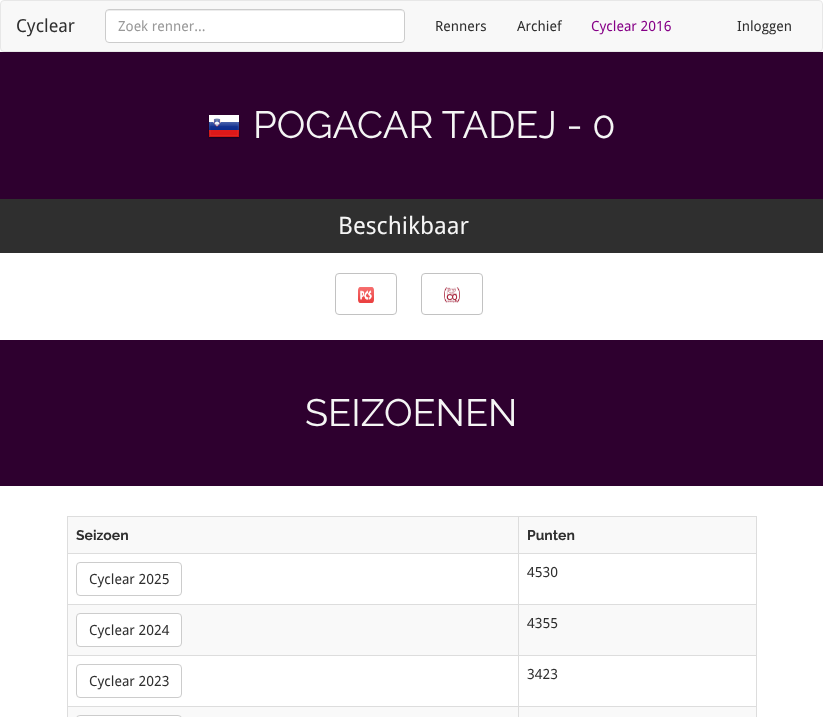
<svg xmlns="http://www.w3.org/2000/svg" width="823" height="717">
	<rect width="100%" height="100%" fill="#FFFFFF" />
	<rect x="0.5" y="0.5" width="822" height="51" rx="3.5" fill="#F8F8F8" stroke="#E7E7E7" />
	<text x="16" y="32" font-family="Droid Sans" font-size="18" fill="#2F2F2F">Cyclear</text>
	<rect x="105" y="9" width="300" height="34" rx="4" fill="#FFFFFF" />
	<path d="M109 11H401C403 11 404 12 404 14L403 11L402 10H109C107 10 106 12 106 14C106 12 107 11 109 11Z" fill="#ECECEC" />
	<rect x="105.5" y="9.5" width="299" height="33" rx="3.5" fill="none" stroke="#CCCCCC" />
	<text x="118" y="31" font-family="Droid Sans" font-size="14" fill="#999999">Zoek renner...</text>
	<g font-family="Droid Sans" font-size="14" fill="#2F2F2F">
		<text x="435" y="31">Renners</text>
		<text x="517" y="31">Archief</text>
	</g>
	<text x="591" y="31" font-family="Droid Sans" font-size="14" fill="#860087">Cyclear 2016</text>
	<text x="737" y="31" font-family="Droid Sans" font-size="14" fill="#2F2F2F">Inloggen</text>
	<rect x="0" y="52" width="823" height="147" fill="#2E002F" />
	<image x="208" y="115" width="32" height="24" href="assets/img1.png" />
	<text x="253" y="138" font-family="Raleway" font-size="38" fill="#F5F5F5">POGACAR TADEJ - 0</text>
	<rect x="0" y="199" width="823" height="54" fill="#2F2F2F" />
	<text x="338" y="234" font-family="Droid Sans" font-size="24" fill="#F5F5F5">Beschikbaar</text>
	<rect x="335.5" y="273.5" width="61" height="41" rx="3.5" fill="none" stroke="#C2C2C2" />
	<image x="358" y="287" width="16" height="16" href="assets/img2.png" />
	<rect x="421.5" y="273.5" width="61" height="41" rx="3.5" fill="none" stroke="#C2C2C2" />
	<image x="444" y="287" width="16" height="16" href="assets/img3.png" />
	<rect x="0" y="340" width="823" height="146" fill="#2E002F" />
	<text x="305" y="426" font-family="Raleway" font-size="38" fill="#F5F5F5">SEIZOENEN</text>
	<rect x="67" y="516" width="690" height="1" fill="#DDDDDD" />
	<rect x="756" y="516" width="1" height="201" fill="#DDDDDD" />
	<rect x="67" y="516" width="1" height="201" fill="#DDDDDD" />
	<rect x="68" y="517" width="688" height="36" fill="#F9F9F9" />
	<text x="76" y="540" font-family="Raleway" font-size="14" font-weight="700" fill="#2F2F2F">Seizoen</text>
	<rect x="518" y="553" width="239" height="1" fill="#DDDDDD" />
	<rect x="518" y="604" width="239" height="1" fill="#DDDDDD" />
	<rect x="68" y="605" width="688" height="50" fill="#F9F9F9" />
	<rect x="518" y="655" width="239" height="1" fill="#DDDDDD" />
	<rect x="518" y="706" width="239" height="1" fill="#DDDDDD" />
	<rect x="68" y="707" width="688" height="10" fill="#F9F9F9" />
	<rect x="518" y="706" width="1" height="11" fill="#DDDDDD" />
	<rect x="67" y="706" width="452" height="1" fill="#DDDDDD" />
	<rect x="518" y="655" width="1" height="52" fill="#DDDDDD" />
	<rect x="67" y="655" width="452" height="1" fill="#DDDDDD" />
	<rect x="518" y="604" width="1" height="52" fill="#DDDDDD" />
	<rect x="67" y="604" width="452" height="1" fill="#DDDDDD" />
	<rect x="518" y="553" width="1" height="52" fill="#DDDDDD" />
	<rect x="67" y="553" width="452" height="1" fill="#DDDDDD" />
	<rect x="518" y="516" width="1" height="38" fill="#DDDDDD" />
	<text x="527" y="540" font-family="Raleway" font-size="14" font-weight="700" fill="#2F2F2F">Punten</text>
	<rect x="76.5" y="562.5" width="105" height="33" rx="3.5" fill="none" stroke="#CCCCCC" />
	<g font-family="Droid Sans" font-size="14" fill="#2F2F2F">
		<text x="89" y="584">Cyclear 2025</text>
		<text x="527" y="577">4530</text>
	</g>
	<rect x="76.5" y="613.5" width="105" height="33" rx="3.5" fill="#FFFFFF" stroke="#CCCCCC" />
	<g font-family="Droid Sans" font-size="14" fill="#2F2F2F">
		<text x="89" y="635">Cyclear 2024</text>
		<text x="527" y="628">4355</text>
	</g>
	<rect x="76.5" y="664.5" width="105" height="33" rx="3.5" fill="none" stroke="#CCCCCC" />
	<g font-family="Droid Sans" font-size="14" fill="#2F2F2F">
		<text x="89" y="686">Cyclear 2023</text>
		<text x="527" y="679">3423</text>
	</g>
	<rect x="76.5" y="715.5" width="105" height="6" rx="3.5" fill="#FFFFFF" stroke="#CCCCCC" />
</svg>
